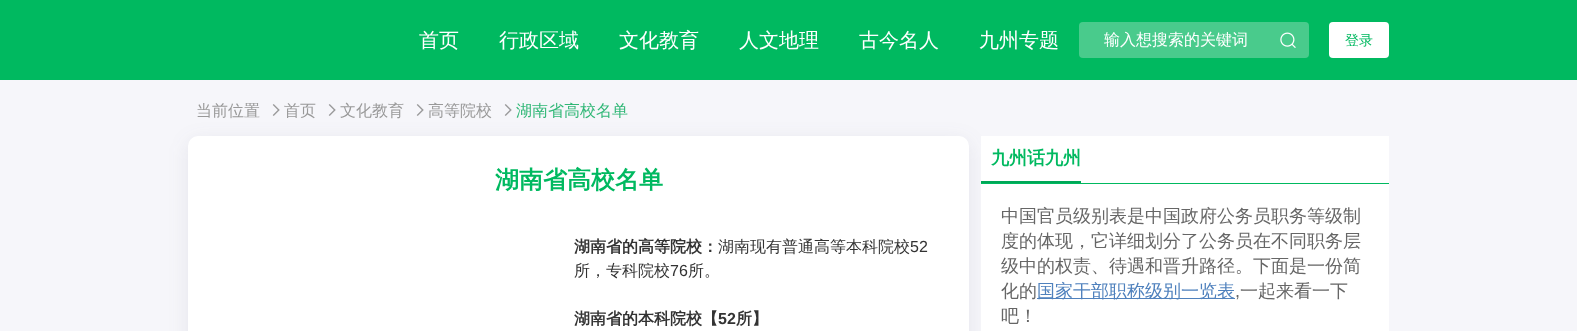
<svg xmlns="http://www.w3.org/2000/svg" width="1577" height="331">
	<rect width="100%" height="100%" fill="#F6F6FA" />
	<rect x="0" y="0" width="1577" height="80" fill="#00B960" />
	<g font-family="WenQuanYi Zen Hei" font-size="20" font-weight="500" fill="#FFFFFF">
		<text x="419" y="47">首页</text>
		<text x="499" y="47">行政区域</text>
		<text x="619" y="47">文化教育</text>
		<text x="739" y="47">人文地理</text>
		<text x="859" y="47">古今名人</text>
		<text x="979" y="47">九州专题</text>
	</g>
	<rect x="1079" y="22" width="230" height="36" rx="4" fill="#49CB8C" />
	<text x="1104" y="45" font-family="WenQuanYi Zen Hei" font-size="16" font-weight="500" fill="#FFFFFF">输入想搜索的关键词</text>
	<image x="1280" y="32" width="16" height="16" href="assets/img1.png" />
	<rect x="1329" y="22" width="60" height="36" rx="4" fill="#FFFFFF" />
	<text x="1345" y="45" font-family="WenQuanYi Zen Hei" font-size="14" font-weight="500" fill="#00B960">登录</text>
	<rect x="188" y="141" width="781" height="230" rx="10" fill="#454360" fill-opacity="0.1" filter="blur(10px)" />
	<text x="196" y="116" font-family="WenQuanYi Zen Hei" font-size="16" font-weight="500" fill="#999999">当前位置</text>
	<image x="272" y="104" width="8" height="12" href="assets/img2.png" />
	<text x="284" y="116" font-family="WenQuanYi Zen Hei" font-size="16" font-weight="500" fill="#999999">首页</text>
	<image x="328" y="104" width="8" height="12" href="assets/img2.png" />
	<text x="340" y="116" font-family="WenQuanYi Zen Hei" font-size="16" font-weight="500" fill="#999999">文化教育</text>
	<image x="416" y="104" width="8" height="12" href="assets/img2.png" />
	<text x="428" y="116" font-family="WenQuanYi Zen Hei" font-size="16" font-weight="500" fill="#999999">高等院校</text>
	<image x="504" y="104" width="8" height="12" href="assets/img2.png" />
	<text x="516" y="116" font-family="WenQuanYi Zen Hei" font-size="16" font-weight="500" fill="#30B776">湖南省高校名单</text>
	<rect x="188" y="136" width="781" height="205" rx="10" fill="#FFFFFF" />
	<text x="495" y="188" font-family="WenQuanYi Zen Hei" font-size="24" font-weight="700" fill="#00B960">湖南省高校名单</text>
	<text x="574" y="252" font-family="WenQuanYi Zen Hei" font-size="16" font-weight="700" fill="#333333">湖南省的高等院校：</text>
	<text x="718" y="252" font-family="WenQuanYi Zen Hei" font-size="16" font-weight="500" fill="#333333">湖南现有普通高等本科院校</text>
	<text x="910" y="252" font-family="Liberation Sans" font-size="16" fill="#333333">52</text>
	<text x="574" y="276" font-family="WenQuanYi Zen Hei" font-size="16" font-weight="500" fill="#333333">所，专科院校</text>
	<text x="670" y="276" font-family="Liberation Sans" font-size="16" fill="#333333">76</text>
	<text x="688" y="276" font-family="WenQuanYi Zen Hei" font-size="16" font-weight="500" fill="#333333">所。</text>
	<text x="574" y="324" font-family="WenQuanYi Zen Hei" font-size="16" font-weight="700" fill="#333333">湖南省的本科院校【</text>
	<text x="718" y="324" font-family="Liberation Sans" font-size="16" font-weight="700" fill="#333333">52</text>
	<text x="736" y="324" font-family="WenQuanYi Zen Hei" font-size="16" font-weight="700" fill="#333333">所】</text>
	<rect x="981" y="136" width="408" height="195" fill="#FFFFFF" />
	<rect x="981" y="183" width="408" height="1" fill="#00B960" />
	<rect x="981" y="181" width="100" height="2" fill="#00A757" />
	<text x="991" y="164" font-family="WenQuanYi Zen Hei" font-size="18" font-weight="700" fill="#00B960">九州话九州</text>
	<g font-family="WenQuanYi Zen Hei" font-size="18" font-weight="500" fill="#666666">
		<text x="1001" y="222">中国官员级别表是中国政府公务员职务等级制</text>
		<text x="1001" y="247">度的体现，它详细划分了公务员在不同职务层</text>
		<text x="1001" y="272">级中的权责、待遇和晋升路径。下面是一份简</text>
		<text x="1001" y="297">化的</text>
	</g>
	<rect x="1037" y="298" width="198" height="1" fill="#4F81BD" />
	<text x="1037" y="297" font-family="WenQuanYi Zen Hei" font-size="18" font-weight="500" fill="#4F81BD">国家干部职称级别一览表</text>
	<text x="1235" y="297" font-family="Liberation Sans" font-size="18" fill="#666666">,</text>
	<g font-family="WenQuanYi Zen Hei" font-size="18" font-weight="500" fill="#666666">
		<text x="1240" y="297">一起来看一下</text>
		<text x="1001" y="322">吧！</text>
	</g>
</svg>
